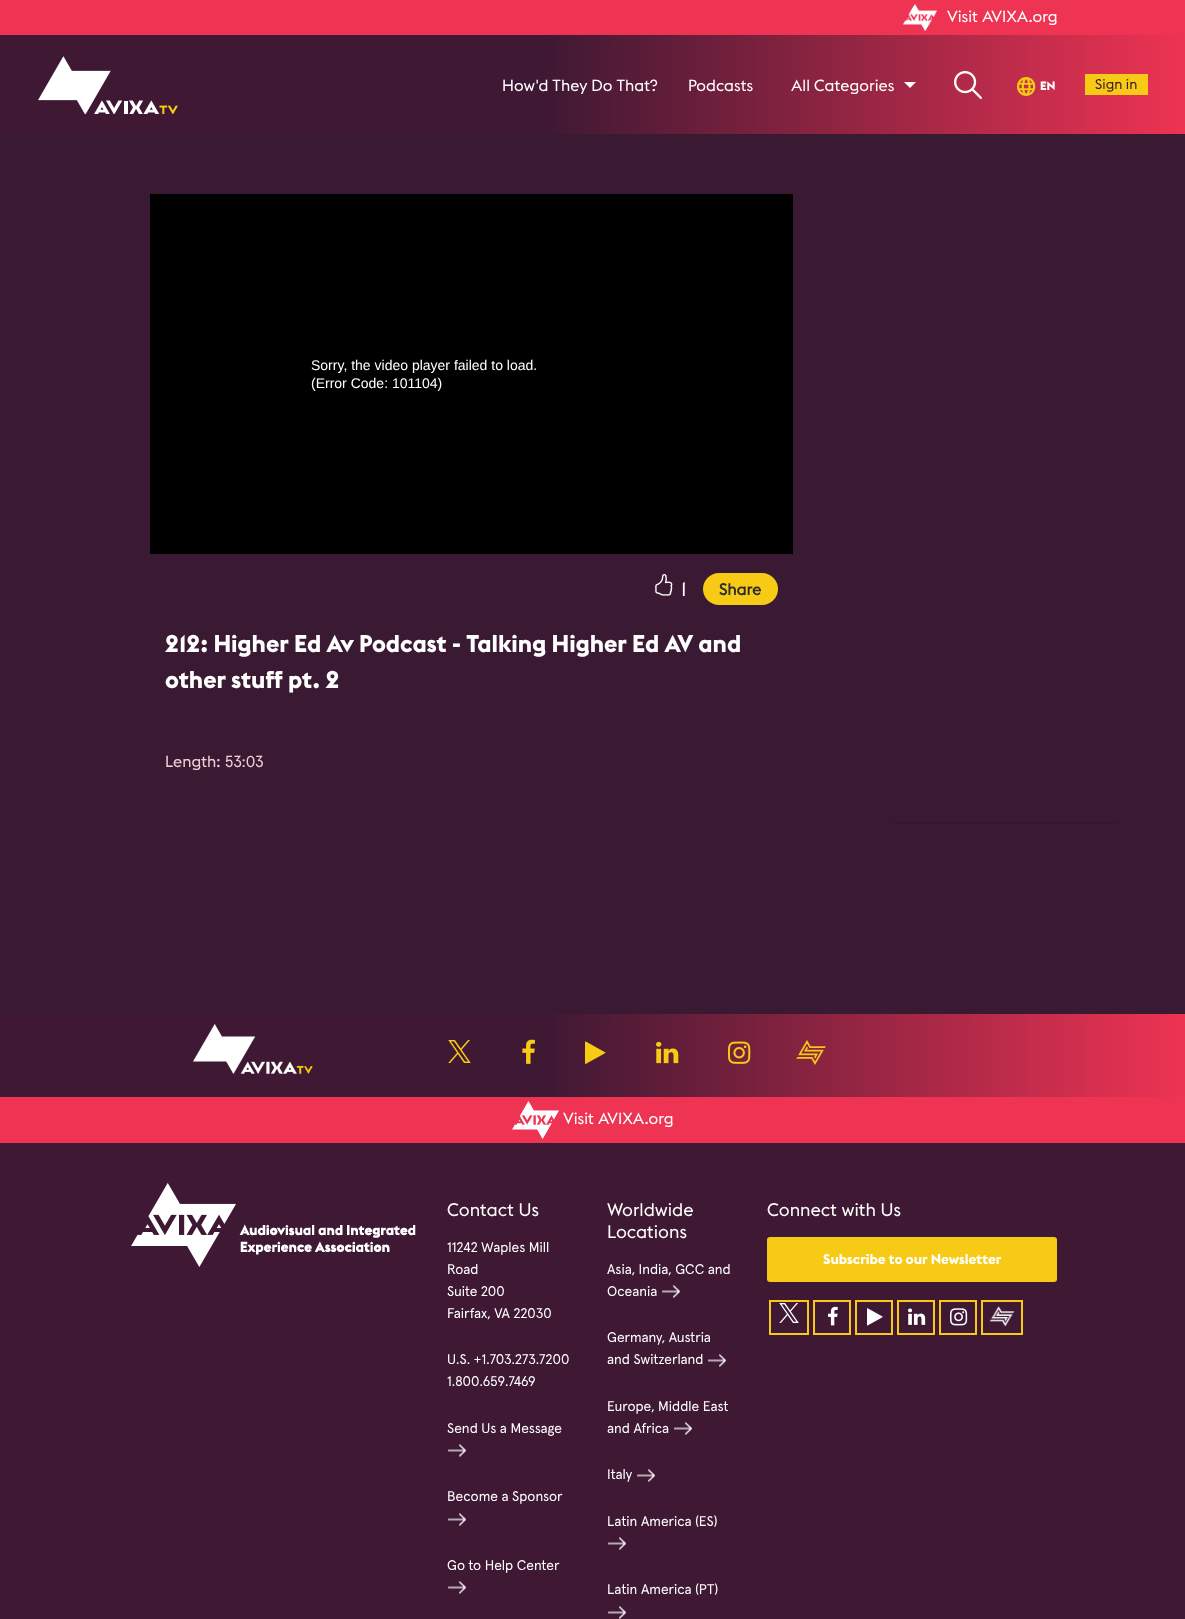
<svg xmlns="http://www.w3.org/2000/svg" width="1185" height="1619">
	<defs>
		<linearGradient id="g1" gradientUnits="userSpaceOnUse" x1="0" y1="85" x2="1185" y2="84"><stop offset="0.46" stop-color="#3F1833" /><stop offset="1" stop-color="#EE3353" /></linearGradient>
		<linearGradient id="g2" gradientUnits="userSpaceOnUse" x1="0" y1="1056" x2="1185" y2="1056"><stop offset="0.46" stop-color="#3F1833" /><stop offset="1" stop-color="#EE3353" /></linearGradient>
	</defs>
	<rect width="100%" height="100%" fill="#3A1A32" />
	<rect x="0" y="0" width="1185" height="35" fill="#EE3353" />
	<image x="903" y="4" width="34" height="27" href="assets/img1.png" />
	<text x="947" y="22" font-family="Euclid" font-size="16" fill="#FFFFFF">Visit AVIXA.org</text>
	<rect x="0" y="35" width="1185" height="99" fill="url(#g1)" />
	<image x="38" y="56" width="140" height="58" href="assets/img2.png" />
	<g font-family="Euclid" font-size="16" fill="#FFFFFF">
		<text x="502" y="91">How'd They Do That?</text>
		<text x="688" y="91">Podcasts</text>
		<text x="791" y="91">All Categories</text>
	</g>
	<path d="M904 82H916L910 88Z" fill="#FFFFFF" />
	<image x="954" y="71" width="28" height="28" href="assets/img3.png" />
	<image x="1017" y="77" width="19" height="19" href="assets/img4.png" />
	<text x="1040" y="90" font-family="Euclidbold" font-size="12" font-weight="700" fill="#FFFFFF">EN</text>
	<rect x="1085" y="74" width="63" height="21" fill="#F6CA15" />
	<text x="1095" y="89" font-family="Euclid" font-size="14" fill="#3A1A32">Sign in</text>
	<rect x="150" y="194" width="643" height="360" fill="#000000" />
	<g font-family="Liberation Sans" font-size="14" fill="#FFFFFF">
		<text x="311" y="370">Sorry, the video player failed to load.</text>
		<text x="311" y="388">(Error Code: 101104)</text>
	</g>
	<image x="655" y="574" width="18" height="22" href="assets/img5.png" />
	<text x="681" y="596" font-family="Euclid" font-size="20" fill="#FFFFFF">1</text>
	<rect x="703" y="573" width="75" height="32" rx="16" fill="#F6CA15" />
	<text x="719" y="595" font-family="Euclid" font-size="16" font-weight="700" fill="#292B2C">Share</text>
	<g font-family="Euclidbold" font-size="24" font-weight="700" fill="#FFFFFF">
		<text x="165" y="652">212: Higher Ed Av Podcast - Talking Higher Ed AV and</text>
		<text x="165" y="688">other stuff pt. 2</text>
	</g>
	<text x="165" y="767" font-family="Euclid" font-size="16" fill="#F2D0D6">Length:</text>
	<text x="225" y="767" font-family="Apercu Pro" font-size="16" fill="#F2D0D6">53:03</text>
	<rect x="893" y="823" width="225" height="1" fill="#34172D" />
	<rect x="0" y="1014" width="1185" height="83" fill="url(#g2)" />
	<image x="193" y="1024" width="120" height="50" href="assets/img6.png" />
	<image x="448" y="1040" width="23" height="23" href="assets/img7.png" />
	<image x="522" y="1039" width="13" height="25" href="assets/img8.png" />
	<image x="585" y="1041" width="21" height="23" href="assets/img9.png" />
	<image x="656" y="1041" width="23" height="23" href="assets/img10.png" />
	<image x="728" y="1041" width="23" height="23" href="assets/img11.png" />
	<image x="796" y="1040" width="30" height="25" href="assets/img12.png" />
	<rect x="0" y="1097" width="1185" height="46" fill="#EE3353" />
	<image x="512" y="1101" width="47" height="38" href="assets/img13.png" />
	<text x="563" y="1124" font-family="Euclid" font-size="16" fill="#FFFFFF">Visit AVIXA.org</text>
	<rect x="0" y="1143" width="1185" height="476" fill="#3F1833" />
	<image x="131" y="1183" width="285" height="84" href="assets/img14.png" />
	<text x="447" y="1216" font-family="Euclid" font-size="18" fill="#FFFFFF">Contact Us</text>
	<g font-family="Apercu Pro" font-size="14" fill="#FFFFFF">
		<text x="447" y="1252">11242 Waples Mill</text>
		<text x="447" y="1274">Road</text>
		<text x="447" y="1296">Suite 200</text>
		<text x="447" y="1318">Fairfax, VA 22030</text>
		<text x="447" y="1364">U.S. +1.703.273.7200</text>
		<text x="447" y="1386">1.800.659.7469</text>
		<text x="447" y="1433">Send Us a Message</text>
	</g>
	<image x="448" y="1444" width="18" height="13" href="assets/img15.png" />
	<text x="447" y="1501" font-family="Apercu Pro" font-size="14" fill="#FFFFFF">Become a Sponsor</text>
	<image x="448" y="1513" width="18" height="13" href="assets/img15.png" />
	<text x="447" y="1570" font-family="Apercu Pro" font-size="14" fill="#FFFFFF">Go to Help Center</text>
	<image x="448" y="1581" width="18" height="13" href="assets/img15.png" />
	<g font-family="Euclid" font-size="18" fill="#FFFFFF">
		<text x="607" y="1216">Worldwide</text>
		<text x="607" y="1238">Locations</text>
	</g>
	<g font-family="Apercu Pro" font-size="14" fill="#FFFFFF">
		<text x="607" y="1274">Asia, India, GCC and</text>
		<text x="607" y="1296">Oceania</text>
	</g>
	<image x="662" y="1285" width="18" height="13" href="assets/img15.png" />
	<g font-family="Apercu Pro" font-size="14" fill="#FFFFFF">
		<text x="607" y="1342">Germany, Austria</text>
		<text x="607" y="1364">and Switzerland</text>
	</g>
	<image x="708" y="1354" width="18" height="13" href="assets/img15.png" />
	<g font-family="Apercu Pro" font-size="14" fill="#FFFFFF">
		<text x="607" y="1411">Europe, Middle East</text>
		<text x="607" y="1433">and Africa</text>
	</g>
	<image x="674" y="1422" width="18" height="13" href="assets/img15.png" />
	<text x="607" y="1479" font-family="Apercu Pro" font-size="14" fill="#FFFFFF">Italy</text>
	<image x="637" y="1469" width="18" height="13" href="assets/img15.png" />
	<text x="607" y="1526" font-family="Apercu Pro" font-size="14" fill="#FFFFFF">Latin America (ES)</text>
	<image x="608" y="1537" width="18" height="13" href="assets/img15.png" />
	<text x="607" y="1594" font-family="Apercu Pro" font-size="14" fill="#FFFFFF">Latin America (PT)</text>
	<image x="608" y="1606" width="18" height="13" href="assets/img15.png" />
	<text x="767" y="1216" font-family="Euclid" font-size="18" fill="#FFFFFF">Connect with Us</text>
	<rect x="767" y="1237" width="290" height="45" rx="3" fill="#F6CA15" />
	<text x="823" y="1264" font-family="Euclidbold" font-size="14" font-weight="700" fill="#FFFFFF">Subscribe to our Newsletter</text>
	<rect x="770" y="1301" width="38" height="33" fill="none" stroke="#F6CA15" stroke-width="2" />
	<image x="779" y="1303" width="20" height="20" href="assets/img16.png" />
	<rect x="814" y="1301" width="36" height="33" fill="none" stroke="#F6CA15" stroke-width="2" />
	<image x="828" y="1306" width="10" height="20" href="assets/img17.png" />
	<rect x="856" y="1301" width="36" height="33" fill="none" stroke="#F6CA15" stroke-width="2" />
	<image x="867" y="1308" width="16" height="18" href="assets/img18.png" />
	<rect x="898" y="1301" width="36" height="33" fill="none" stroke="#F6CA15" stroke-width="2" />
	<image x="908" y="1308" width="18" height="17" href="assets/img19.png" />
	<rect x="940" y="1301" width="36" height="33" fill="none" stroke="#F6CA15" stroke-width="2" />
	<image x="950" y="1308" width="18" height="18" href="assets/img20.png" />
	<rect x="982" y="1301" width="40" height="33" fill="none" stroke="#F6CA15" stroke-width="2" />
	<image x="989" y="1306" width="26" height="21" href="assets/img21.png" />
</svg>
